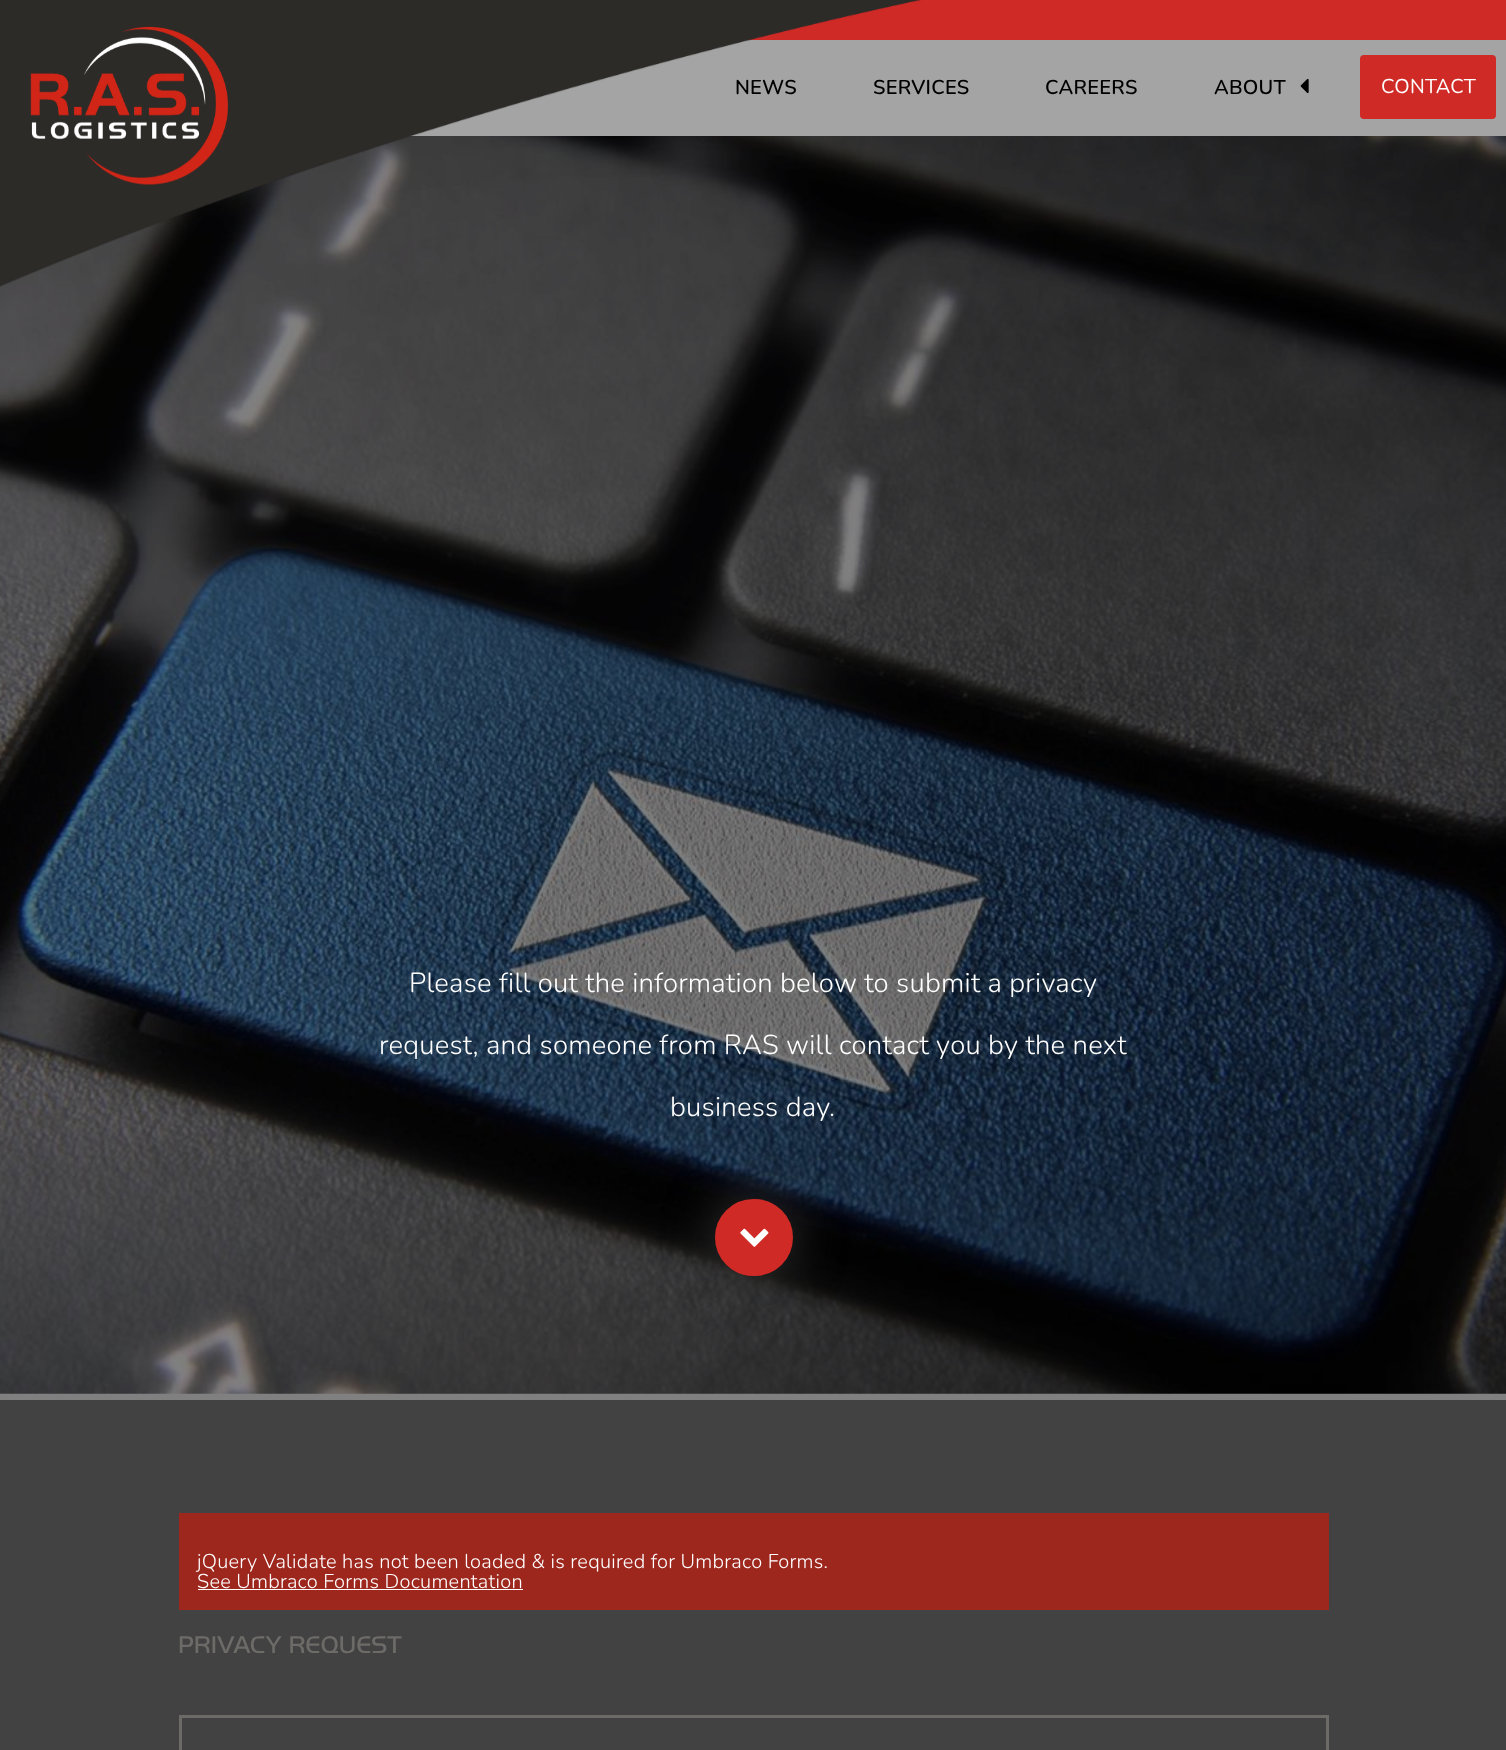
<svg xmlns="http://www.w3.org/2000/svg" width="1506" height="1750">
	<rect width="100%" height="100%" fill="#808080" />
	<rect x="747" y="0" width="759" height="40" fill="#D02A27" />
	<rect x="408" y="40" width="1098" height="96" fill="#A4A4A4" />
	<g font-family="Nunito" font-size="20" font-weight="600" letter-spacing="0.25" fill="#000000">
		<text x="735" y="94">NEWS</text>
		<text x="873" y="94">SERVICES</text>
	</g>
	<image x="0" y="136" width="1506" height="1258" href="assets/img4.png" />
	<image x="0" y="0" width="922" height="287" href="assets/img1.png" />
	<image x="30" y="26" width="198" height="159" href="assets/img2.png" />
	<g font-family="Nunito" font-size="20" font-weight="600" letter-spacing="0.25" fill="#000000">
		<text x="1045" y="94">CAREERS</text>
		<text x="1214" y="94">ABOUT</text>
	</g>
	<image x="1300" y="78" width="9" height="16" href="assets/img3.png" />
	<rect x="1361.5" y="56.5" width="133" height="61" rx="2.5" fill="#D02A27" stroke="#D02A27" stroke-width="3" />
	<text x="1381" y="93" font-family="Nunito" font-size="20" letter-spacing="0.25" fill="#FFFFFF">CONTACT</text>
	<g font-family="Nunito" font-size="27.5" font-weight="300" letter-spacing="0.25" fill="#FFFFFF">
		<text x="409" y="992">Please fill out the information below to submit a privacy</text>
		<text x="379" y="1054">request, and someone from RAS will contact you by the next</text>
		<text x="670" y="1116">business day.</text>
	</g>
	<rect x="715" y="1199" width="78" height="77" rx="38.5" fill="#333333" filter="blur(25px)" />
	<rect x="716.5" y="1200.5" width="75" height="74" rx="37" fill="#D02A27" stroke="#D02A27" stroke-width="3" />
	<image x="740" y="1228" width="29" height="19" href="assets/img5.png" />
	<rect x="0" y="1400" width="1506" height="350" fill="#424242" />
	<rect x="179" y="1513" width="1150" height="97" fill="#9D261D" />
	<g font-family="Nunito" font-size="20" font-weight="300" letter-spacing="0.25" fill="#FFFFFF">
		<text x="197" y="1568">jQuery Validate has not been loaded &amp; is required for Umbraco Forms.</text>
		<text x="197" y="1588">See Umbraco Forms Documentation</text>
	</g>
	<rect x="198" y="1589" width="325" height="1" fill="#FFFFFF" />
	<text x="178" y="1653" font-family="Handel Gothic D" font-size="25" font-weight="300" letter-spacing="0.25" fill="#6D6B68">PRIVACY REQUEST</text>
	<rect x="180.5" y="1716.5" width="1147" height="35" fill="none" stroke="#6D6B68" stroke-width="3" />
</svg>
